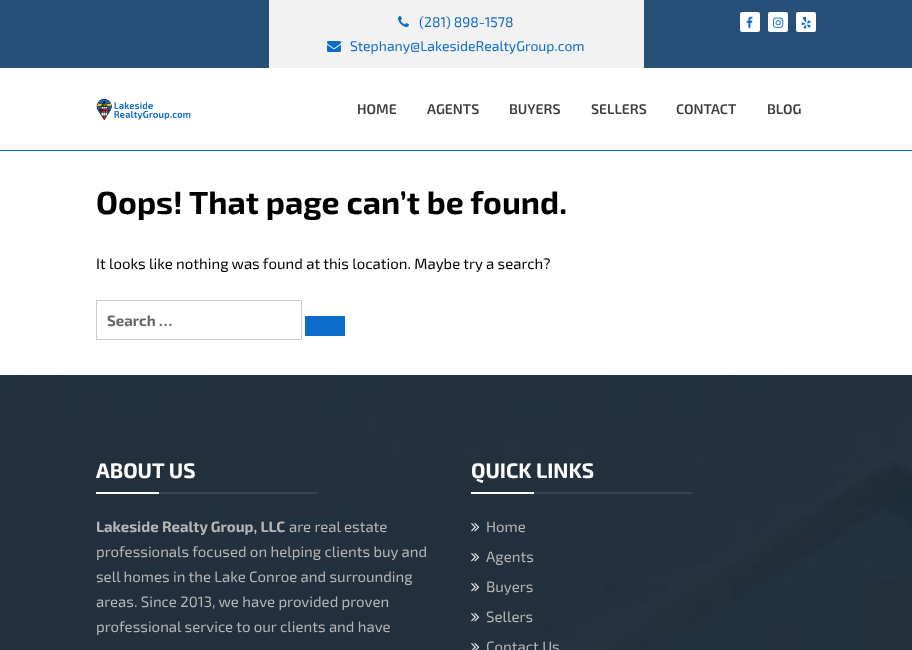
<svg xmlns="http://www.w3.org/2000/svg" width="912" height="650">
	<rect width="100%" height="100%" fill="#FFFFFF" />
	<rect x="0" y="0" width="912" height="68" fill="#265078" />
	<rect x="269" y="0" width="375" height="68" fill="#F2F2F2" />
	<image x="398" y="16" width="11" height="11" href="assets/img1.png" />
	<text x="419" y="27" font-family="'Exo 2'" font-size="14" fill="#0D6CC9">(281) 898-1578</text>
	<image x="327" y="41" width="14" height="11" href="assets/img2.png" />
	<text x="350" y="51" font-family="'Exo 2'" font-size="14" fill="#0D6CC9">Stephany@LakesideRealtyGroup.com</text>
	<rect x="740" y="12" width="20" height="20" rx="2" fill="#FFFFFF" />
	<image x="746" y="16" width="7" height="12" href="assets/img3.png" />
	<rect x="768" y="12" width="20" height="20" rx="2" fill="#FFFFFF" />
	<image x="773" y="17" width="11" height="11" href="assets/img4.png" />
	<rect x="796" y="12" width="20" height="20" rx="2" fill="#FFFFFF" />
	<image x="801" y="16" width="10" height="13" href="assets/img5.png" />
	<rect x="0" y="150" width="912" height="1" fill="#0D6CC9" />
	<image x="96" y="99" width="95" height="22" href="assets/img6.png" />
	<g font-family="'Exo 2'" font-size="14" font-weight="600" fill="#3C3C3C">
		<text x="357" y="114">HOME</text>
		<text x="427" y="114">AGENTS</text>
		<text x="509" y="114">BUYERS</text>
		<text x="591" y="114">SELLERS</text>
		<text x="676" y="114">CONTACT</text>
		<text x="767" y="114">BLOG</text>
	</g>
	<text x="96" y="214" font-family="'Exo 2'" font-size="32" font-weight="700" fill="#000000">Oops! That page can’t be found.</text>
	<text x="96" y="269" font-family="'Exo 2'" font-size="15" fill="#000000">It looks like nothing was found at this location. Maybe try a search?</text>
	<rect x="96.5" y="300.5" width="205" height="39" fill="none" stroke="#CCCCCC" />
	<text x="107" y="326" font-family="'Exo 2'" font-size="15" font-weight="700" fill="#686868">Search …</text>
	<rect x="305" y="316" width="40" height="20" fill="#0D6CC9" />
	<image x="0" y="375" width="912" height="275" href="assets/img7.png" />
	<image x="96" y="492" width="221" height="2" href="assets/img8.png" />
	<text x="96" y="478" font-family="'Exo 2'" font-size="21" font-weight="700" fill="#FFFFFF">ABOUT US</text>
	<text x="96" y="532" font-family="'Exo 2'" font-size="15" font-weight="700" fill="#B6B6B6">Lakeside Realty Group, LLC</text>
	<g font-family="'Exo 2'" font-size="15" fill="#B6B6B6">
		<text x="289" y="532">are real estate</text>
		<text x="96" y="557">professionals focused on helping clients buy and</text>
		<text x="96" y="582">sell homes in the Lake Conroe and surrounding</text>
		<text x="96" y="607">areas. Since 2013, we have provided proven</text>
		<text x="96" y="632">professional service to our clients and have</text>
	</g>
	<image x="471" y="492" width="221" height="2" href="assets/img8.png" />
	<text x="471" y="478" font-family="'Exo 2'" font-size="21" font-weight="700" fill="#FFFFFF">QUICK LINKS</text>
	<image x="471" y="523" width="9" height="9" href="assets/img9.png" />
	<text x="486" y="532" font-family="'Exo 2'" font-size="15" fill="#B6B6B6">Home</text>
	<image x="471" y="553" width="9" height="9" href="assets/img10.png" />
	<text x="486" y="562" font-family="'Exo 2'" font-size="15" fill="#B6B6B6">Agents</text>
	<image x="471" y="583" width="9" height="9" href="assets/img11.png" />
	<text x="486" y="592" font-family="'Exo 2'" font-size="15" fill="#B6B6B6">Buyers</text>
	<image x="471" y="613" width="9" height="9" href="assets/img12.png" />
	<text x="486" y="622" font-family="'Exo 2'" font-size="15" fill="#B6B6B6">Sellers</text>
	<image x="471" y="643" width="9" height="7" href="assets/img13.png" />
	<text x="486" y="652" font-family="'Exo 2'" font-size="15" fill="#B6B6B6">Contact Us</text>
</svg>
